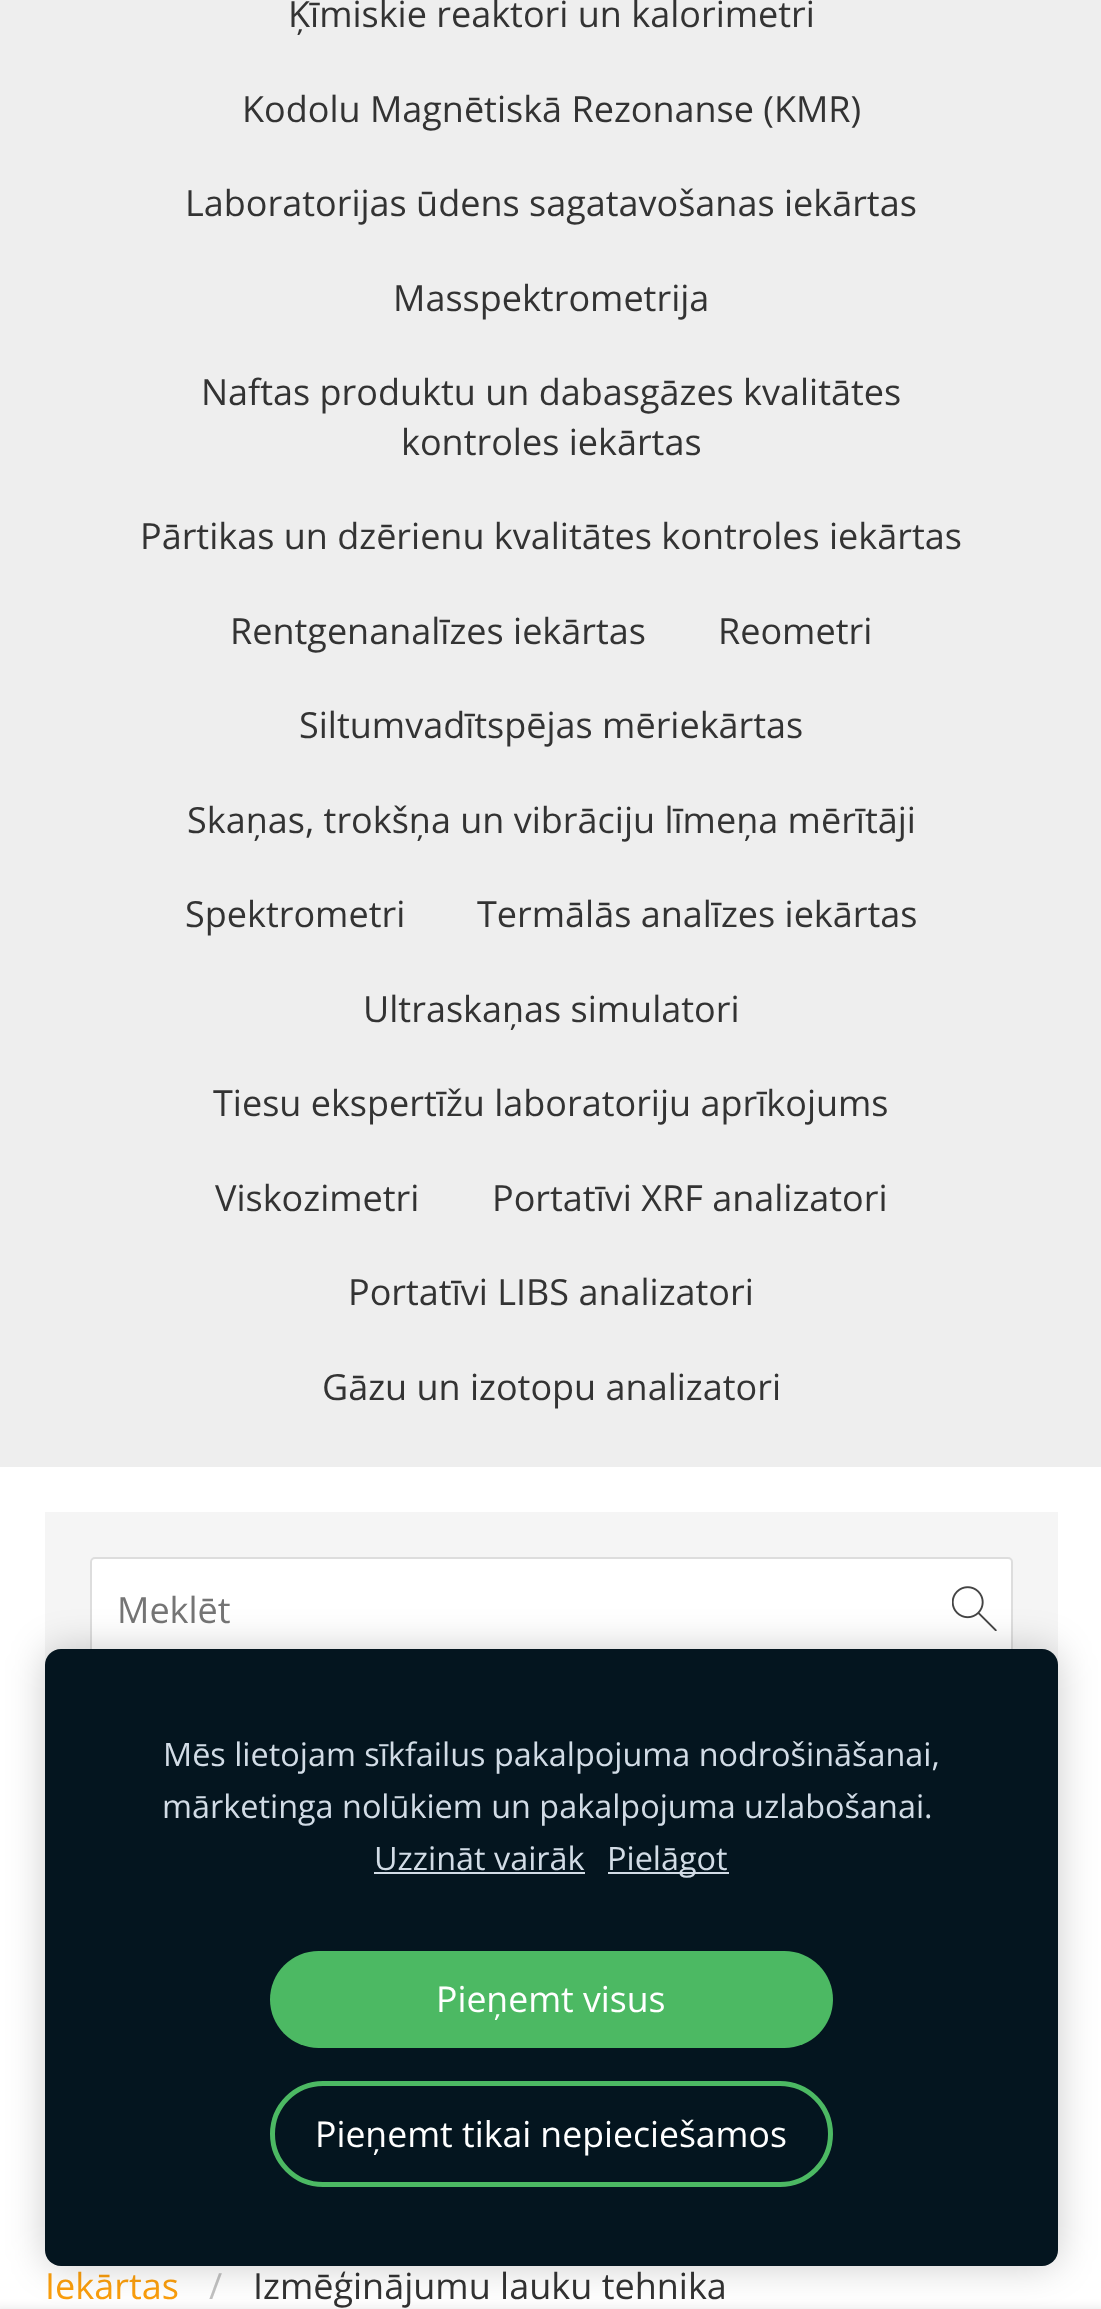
<svg xmlns="http://www.w3.org/2000/svg" width="1101" height="2309">
	<rect width="100%" height="100%" fill="#FFFFFF" />
	<rect x="0" y="0" width="1101" height="1467" fill="#EEEEEE" />
	<g font-family="Open Sans" font-size="36" fill="#333333">
		<text x="288" y="27">Ķīmiskie reaktori un kalorimetri</text>
		<text x="242" y="122">Kodolu Magnētiskā Rezonanse (KMR)</text>
		<text x="185" y="216">Laboratorijas ūdens sagatavošanas iekārtas</text>
		<text x="393" y="311">Masspektrometrija</text>
		<text x="201" y="405">Naftas produktu un dabasgāzes kvalitātes</text>
		<text x="401" y="455">kontroles iekārtas</text>
		<text x="140" y="549">Pārtikas un dzērienu kvalitātes kontroles iekārtas</text>
		<text x="230" y="644">Rentgenanalīzes iekārtas</text>
		<text x="718" y="644">Reometri</text>
		<text x="299" y="738">Siltumvadītspējas mēriekārtas</text>
		<text x="187" y="833">Skaņas, trokšņa un vibrāciju līmeņa mērītāji</text>
		<text x="185" y="927">Spektrometri</text>
		<text x="477" y="927">Termālās analīzes iekārtas</text>
		<text x="363" y="1022">Ultraskaņas simulatori</text>
		<text x="213" y="1116">Tiesu ekspertīžu laboratoriju aprīkojums</text>
		<text x="215" y="1211">Viskozimetri</text>
		<text x="492" y="1211">Portatīvi XRF analizatori</text>
		<text x="348" y="1305">Portatīvi LIBS analizatori</text>
		<text x="322" y="1400">Gāzu un izotopu analizatori</text>
	</g>
	<rect x="45" y="1512" width="1013" height="153" fill="#F5F5F5" />
	<rect x="91" y="1558" width="921" height="102" rx="4" fill="#FFFFFF" stroke="#DDDDDD" stroke-width="2" />
	<text x="117" y="1623" font-family="Open Sans" font-size="36" fill="#757575">Meklēt</text>
	<image x="952" y="1586" width="45" height="45" href="assets/img1.png" />
	<text x="45" y="2299" font-family="Open Sans" font-size="36" fill="#FA9E0D">Iekārtas</text>
	<text x="209" y="2299" font-family="Open Sans" font-size="36" fill="#C2C2C2">/</text>
	<text x="253" y="2299" font-family="Open Sans" font-size="36" fill="#333333">Izmēģinājumu lauku tehnika</text>
	<rect x="-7" y="2309" width="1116" height="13" fill="#000000" fill-opacity="0.1" filter="blur(5.5px)" />
	<rect x="45" y="1649" width="1013" height="617" rx="16" fill="#000000" fill-opacity="0.2" filter="blur(19px)" />
	<rect x="45" y="1649" width="1013" height="617" rx="16" fill="#04151F" />
	<g font-family="Open Sans" font-size="32.4" fill="#D2DCE6">
		<text x="163" y="1766">Mēs lietojam sīkfailus pakalpojuma nodrošināšanai,</text>
		<text x="162" y="1818">mārketinga nolūkiem un pakalpojuma uzlabošanai.</text>
		<text x="374" y="1870">Uzzināt vairāk</text>
	</g>
	<rect x="374" y="1872" width="211" height="2" fill="#D2DCE6" />
	<rect x="608" y="1872" width="121" height="2" fill="#D2DCE6" />
	<text x="607" y="1870" font-family="Open Sans" font-size="32.4" fill="#D2DCE6">Pielāgot</text>
	<rect x="270" y="1951" width="563" height="97" rx="48.5" fill="#4CB963" />
	<text x="436" y="2012" font-family="Open Sans" font-size="35.6" fill="#FFFFFF">Pieņemt visus</text>
	<rect x="272.5" y="2083.5" width="558" height="101" rx="50.5" fill="none" stroke="#4CB963" stroke-width="5" />
	<text x="315" y="2147" font-family="Open Sans" font-size="35.6" fill="#FFFFFF">Pieņemt tikai nepieciešamos</text>
</svg>
